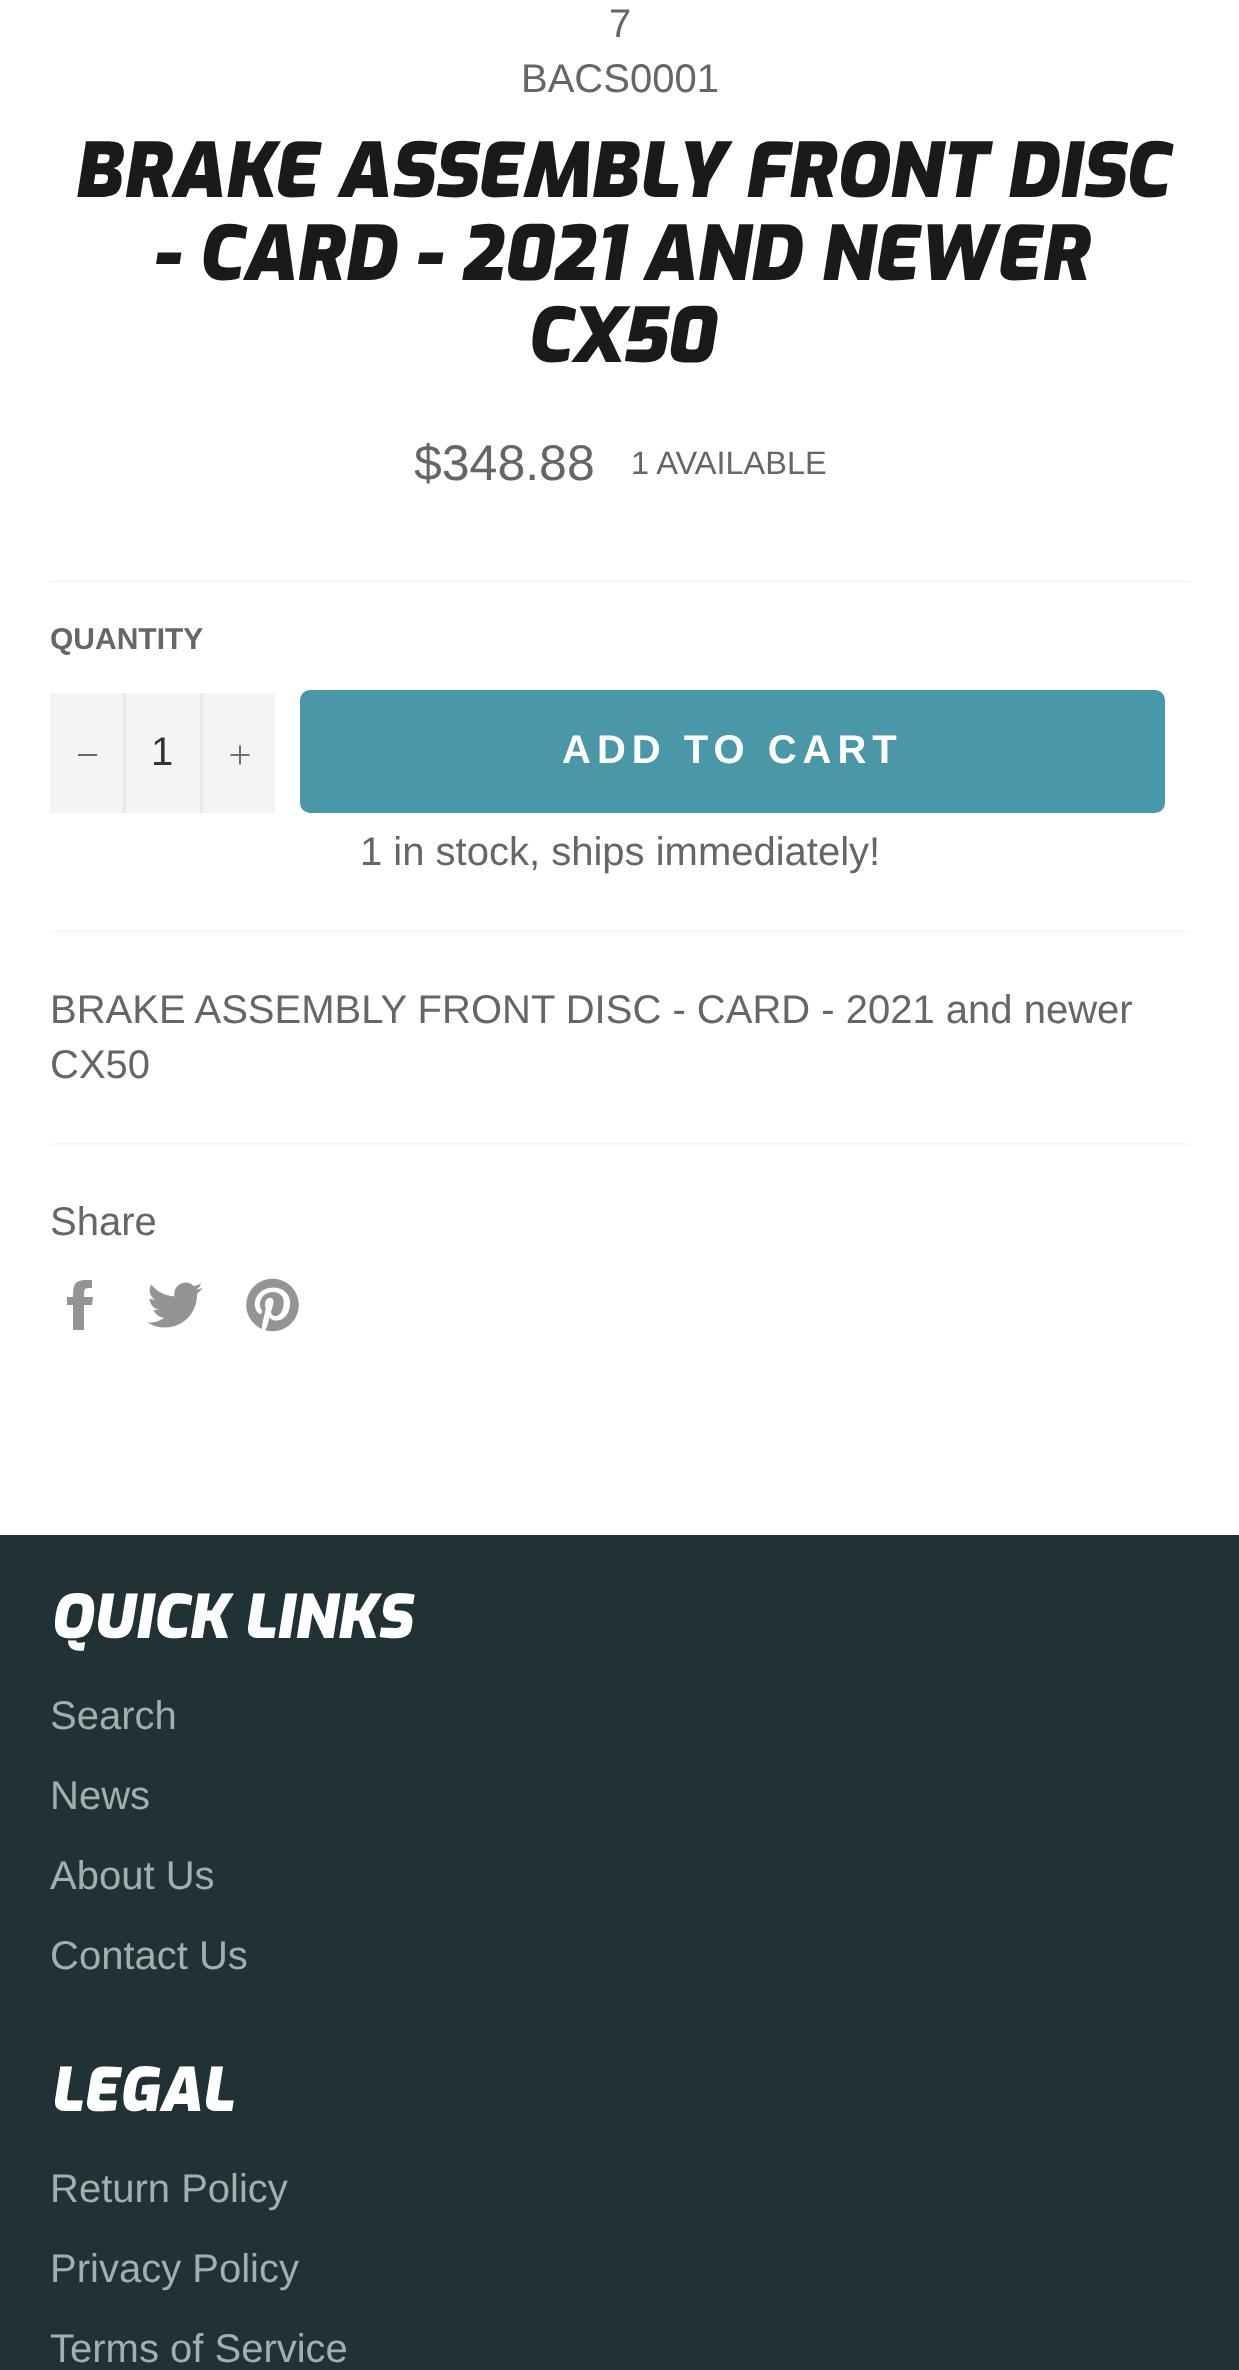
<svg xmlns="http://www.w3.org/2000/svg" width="1239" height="2370">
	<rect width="100%" height="100%" fill="#FFFFFF" />
	<g font-family="Liberation Sans" font-size="40" fill="#666666">
		<text x="609" y="37">7</text>
		<text x="521" y="92">BACS0001</text>
	</g>
	<g font-family="Exo" font-size="75" font-weight="900" font-style="italic" fill="#1A1A1A">
		<text x="73" y="197">BRAKE ASSEMBLY FRONT DISC</text>
		<text x="152" y="280">- CARD - 2021 AND NEWER</text>
		<text x="526" y="362">CX50</text>
	</g>
	<text x="414" y="480" font-family="Liberation Sans" font-size="50" fill="#666666">$348.88</text>
	<text x="631" y="474" font-family="Liberation Sans" font-size="32.5" fill="#666666">1 AVAILABLE</text>
	<rect x="50" y="580" width="1140" height="3" fill="#F7F7F7" />
	<text x="50" y="649" font-family="Liberation Sans" font-size="30" font-weight="700" fill="#666666">QUANTITY</text>
	<rect x="50" y="693" width="225" height="120" fill="#F4F4F4" />
	<rect x="123" y="693" width="3" height="120" fill="#E7E7E7" />
	<rect x="78" y="754" width="19" height="2" fill="#666666" />
	<text x="151" y="765" font-family="Liberation Sans" font-size="40" fill="#333333">1</text>
	<rect x="200" y="693" width="3" height="120" fill="#E7E7E7" />
	<image x="230" y="745" width="20" height="20" href="assets/img1.png" />
	<rect x="300" y="690" width="865" height="123" rx="10" fill="#4898A7" />
	<text x="562" y="763" font-family="Liberation Sans" font-size="40" font-weight="700" letter-spacing="6" fill="#FFFFFF">ADD TO CART</text>
	<text x="360" y="865" font-family="Liberation Sans" font-size="40" fill="#666666">1 in stock, ships immediately!</text>
	<rect x="50" y="930" width="1140" height="3" fill="#F7F7F7" />
	<g font-family="Liberation Sans" font-size="40" fill="#666666">
		<text x="50" y="1023">BRAKE ASSEMBLY FRONT DISC - CARD - 2021 and newer</text>
		<text x="50" y="1078">CX50</text>
	</g>
	<rect x="50" y="1143" width="1140" height="3" fill="#F7F7F7" />
	<text x="50" y="1235" font-family="Liberation Sans" font-size="40" fill="#666666">Share</text>
	<path d="M84 1297C84 1288 84 1288 92 1288V1280C77 1280 73 1280 73 1297H67V1305H73V1330H84V1305H92L93 1297Z" fill="#949494" />
	<image x="147" y="1282" width="56" height="46" href="assets/img2.png" />
	<image x="246" y="1278" width="53" height="54" href="assets/img3.png" />
	<rect x="0" y="1535" width="1239" height="835" fill="#213236" />
	<text x="50" y="1638" font-family="Exo" font-size="60" font-weight="900" font-style="italic" fill="#FFFFFF">QUICK LINKS</text>
	<g font-family="Liberation Sans" font-size="40" fill="#A6ADAF">
		<text x="50" y="1729">Search</text>
		<text x="50" y="1809">News</text>
		<text x="50" y="1889">About Us</text>
		<text x="50" y="1969">Contact Us</text>
	</g>
	<text x="50" y="2111" font-family="Exo" font-size="60" font-weight="900" font-style="italic" fill="#FFFFFF">LEGAL</text>
	<g font-family="Liberation Sans" font-size="40" fill="#A6ADAF">
		<text x="50" y="2202">Return Policy</text>
		<text x="50" y="2282">Privacy Policy</text>
		<text x="50" y="2362">Terms of Service</text>
	</g>
</svg>
